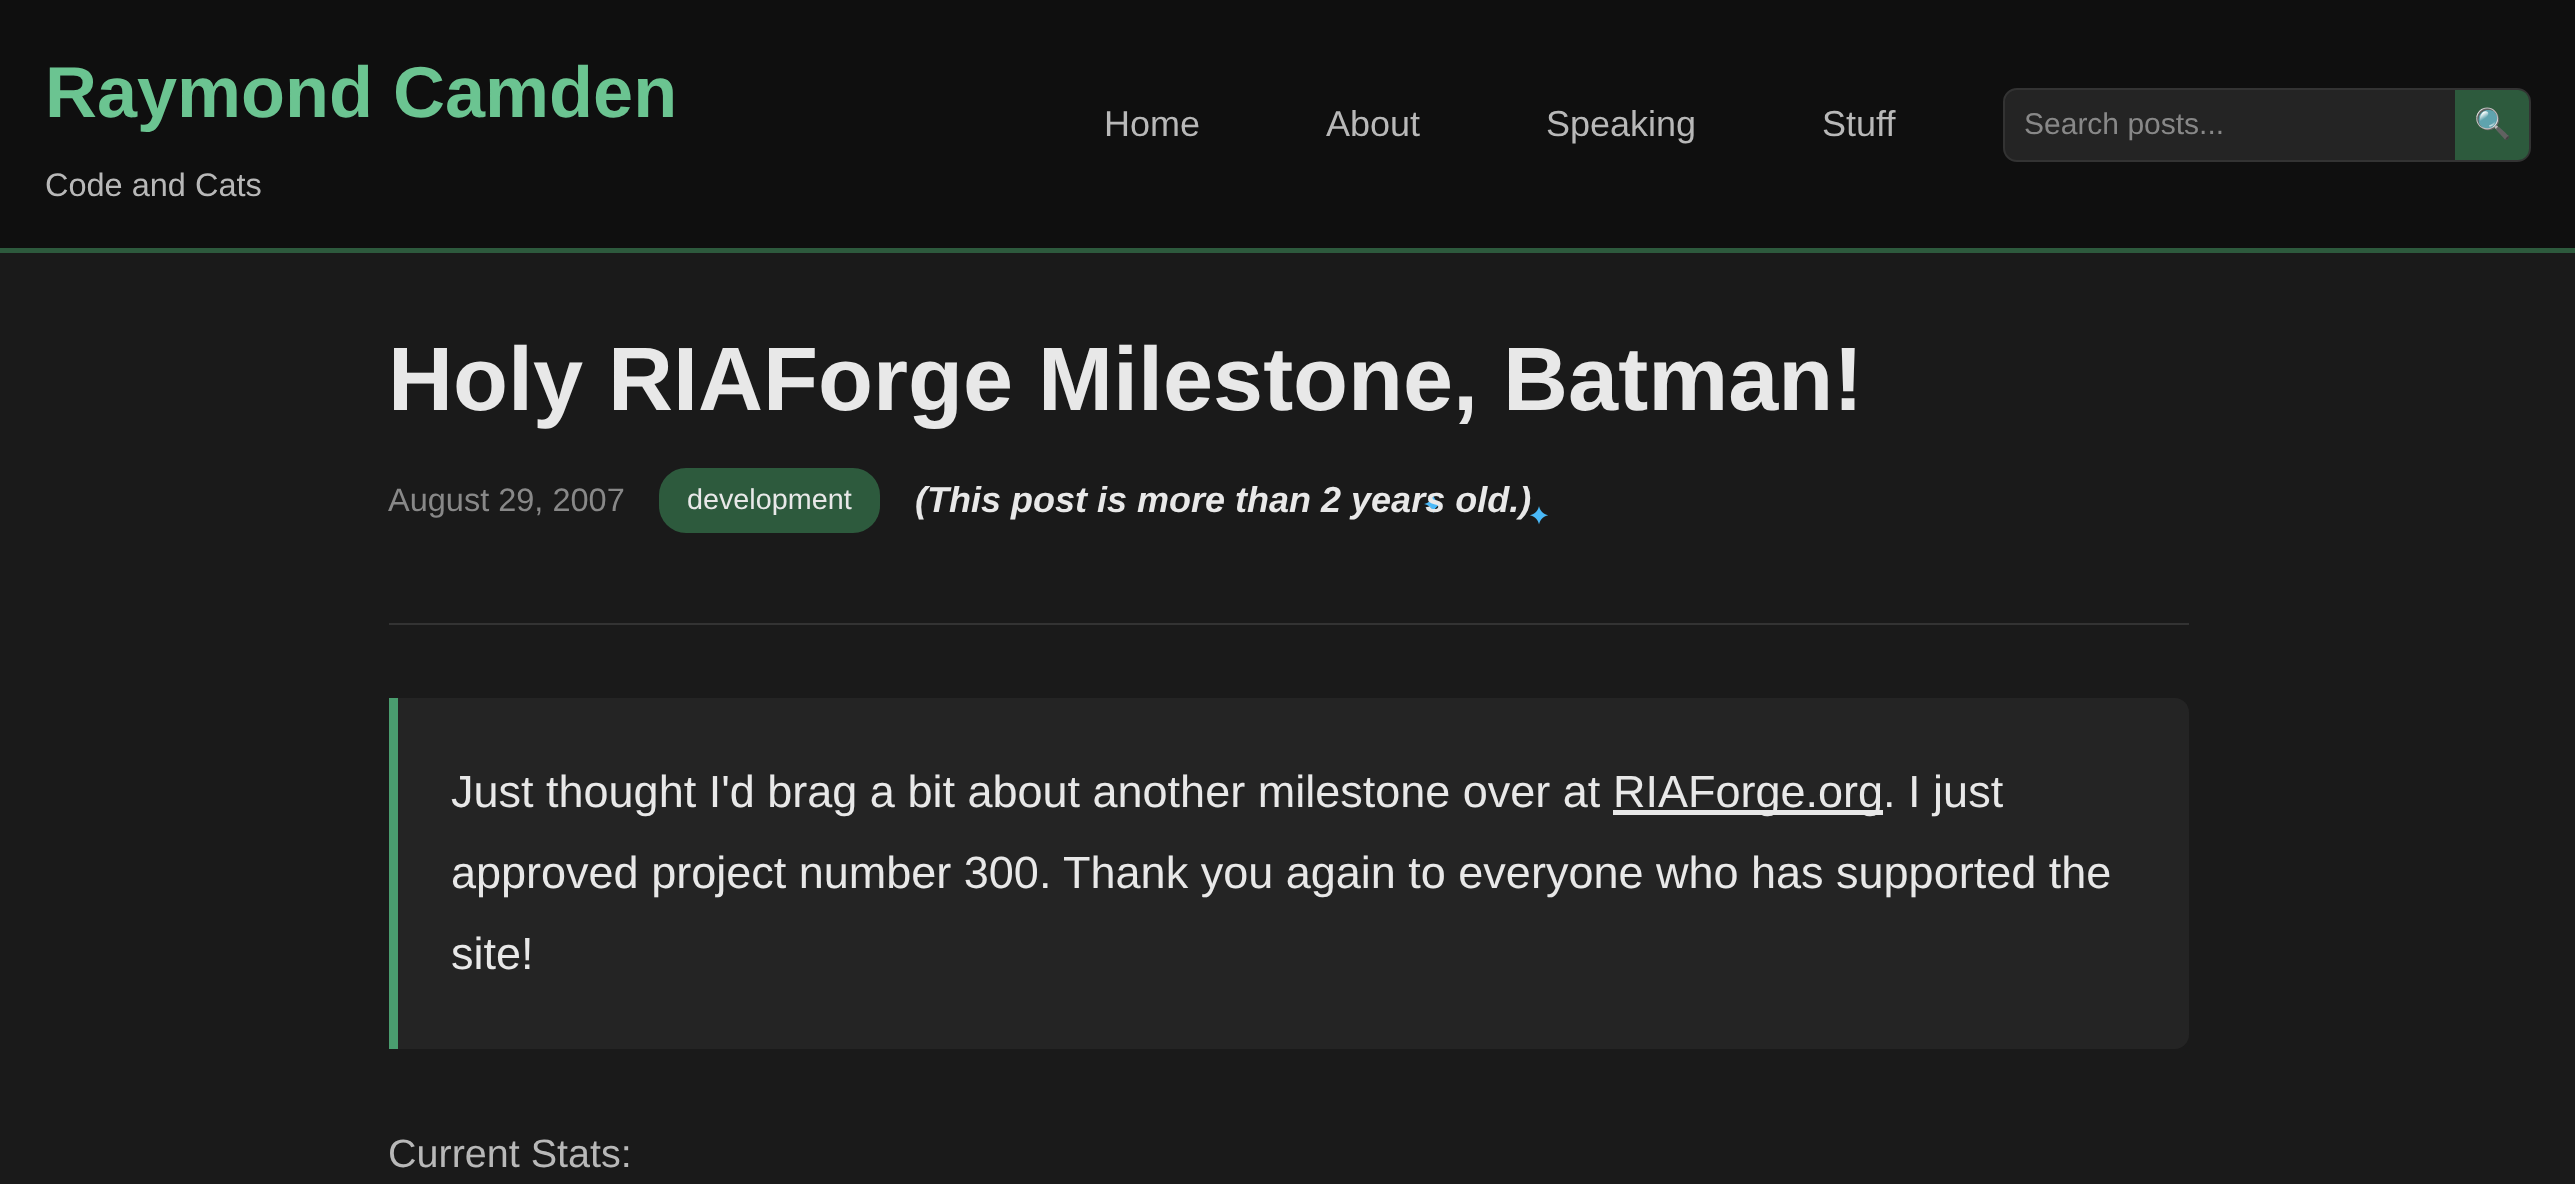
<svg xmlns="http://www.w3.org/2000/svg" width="2575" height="1184">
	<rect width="100%" height="100%" fill="#1A1A1A" />
	<rect x="0" y="0" width="2575" height="248" fill="#0F0F0F" />
	<rect x="0" y="248" width="2575" height="5" fill="#2D5A3D" />
	<text x="45" y="117" font-family="Liberation Sans" font-size="72" font-weight="700" fill="#6BC491">Raymond Camden</text>
	<text x="45" y="196" font-family="Liberation Sans" font-size="32.5" fill="#B8B8B8">Code and Cats</text>
	<g font-family="Liberation Sans" font-size="36" fill="#B8B8B8">
		<text x="1104" y="136">Home</text>
		<text x="1326" y="136">About</text>
		<text x="1546" y="136">Speaking</text>
		<text x="1822" y="136">Stuff</text>
	</g>
	<rect x="2004" y="89" width="526" height="72" rx="13" fill="#242424" stroke="#333333" stroke-width="2" />
	<text x="2024" y="134" font-family="Liberation Sans" font-size="30" fill="#888888">Search posts...</text>
	<path d="M2455 90H2518C2524 90 2529 95 2529 101V149C2529 155 2524 160 2518 160H2455Z" fill="#2D5A3D" />
	<text x="2474" y="134" font-family="Noto Color Emoji" font-size="30" fill="#E8E8E8">🔍</text>
	<rect x="389" y="623" width="1800" height="2" fill="#333333" />
	<text x="388" y="410" font-family="Liberation Sans" font-size="90" font-weight="700" fill="#E8E8E8">Holy RIAForge Milestone, Batman!</text>
	<text x="388" y="511" font-family="Liberation Sans" font-size="32.5" fill="#888888">August 29, 2007</text>
	<rect x="659" y="468" width="221" height="65" rx="27" fill="#2D5A3D" />
	<text x="687" y="509" font-family="Liberation Sans" font-size="28.75" fill="#E8E8E8">development</text>
	<image x="1424" y="495" width="19" height="18" href="assets/img1.png" />
	<text x="915" y="512" font-family="Liberation Sans" font-size="36" font-weight="700" font-style="italic" fill="#E8E8E8">(This post is more than 2 years old.)</text>
	<image x="1530" y="506" width="18" height="19" href="assets/img2.png" />
	<path d="M389 698H2175C2182.5 698 2189 704.5 2189 712V1035C2189 1042.5 2182.5 1049 2175 1049H389Z" fill="#242424" />
	<rect x="389" y="698" width="9" height="351" fill="#4A9D6F" />
	<text x="451" y="807" font-family="Liberation Sans" font-size="45" fill="#E8E8E8">Just thought I'd brag a bit about another milestone over at</text>
	<rect x="1613" y="810" width="270" height="5" fill="#E8E8E8" />
	<g font-family="Liberation Sans" font-size="45" fill="#E8E8E8">
		<text x="1613" y="807">RIAForge.org. I just</text>
		<text x="451" y="888">approved project number 300. Thank you again to everyone who has supported the</text>
		<text x="451" y="969">site!</text>
	</g>
	<text x="388" y="1167" font-family="Liberation Sans" font-size="39.5" fill="#B8B8B8">Current Stats:</text>
</svg>
